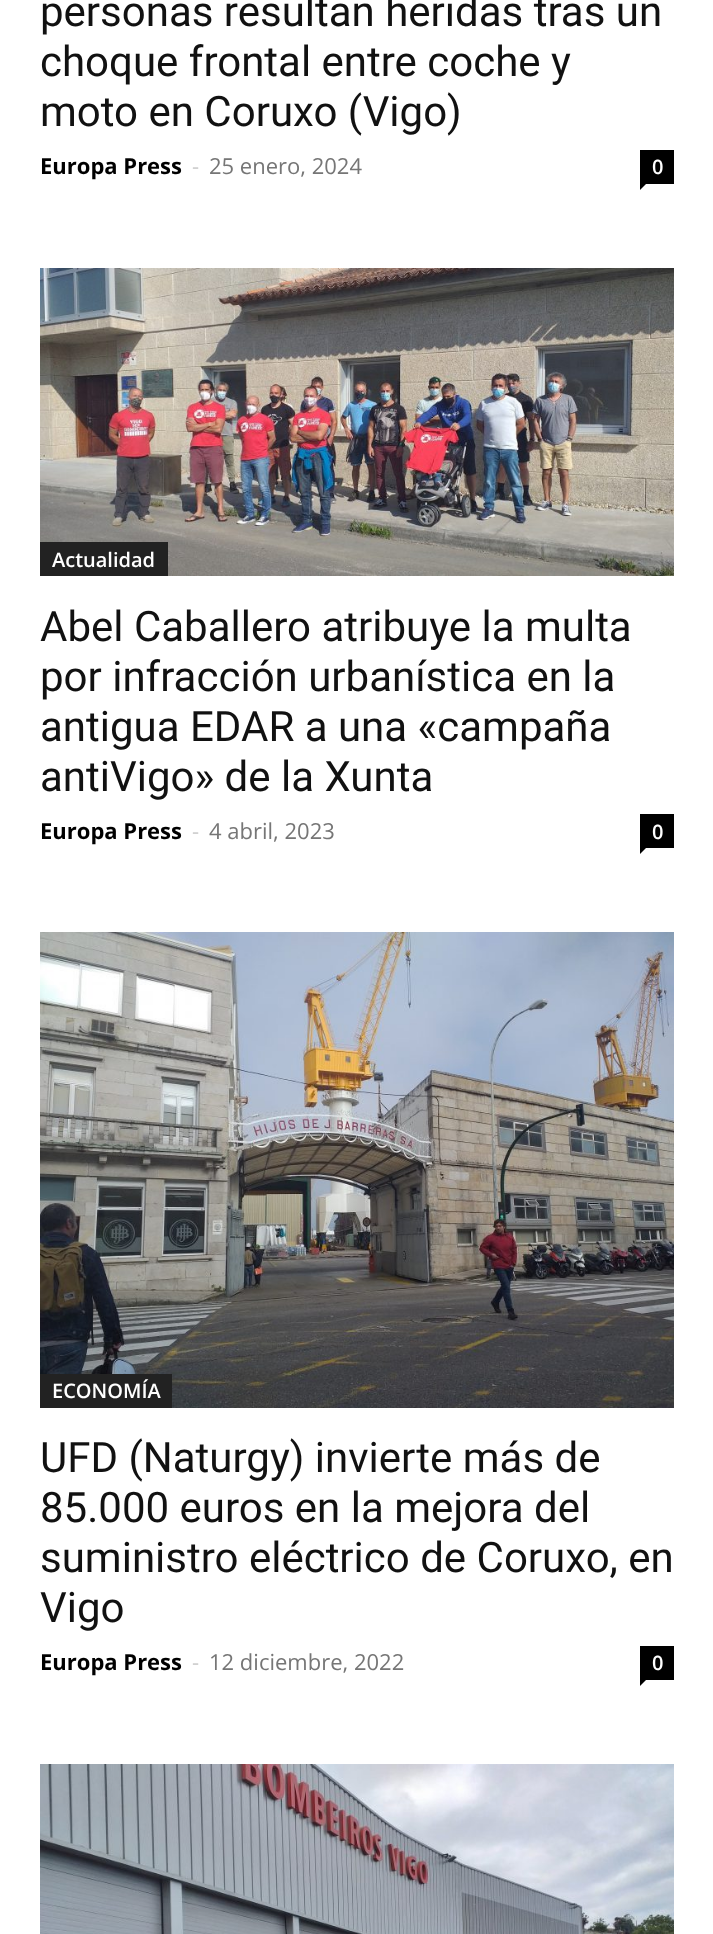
<svg xmlns="http://www.w3.org/2000/svg" width="713" height="1934">
	<rect width="100%" height="100%" fill="#FFFFFF" />
	<g font-family="Roboto" font-size="42" fill="#111111">
		<text x="40" y="26">personas resultan heridas tras un</text>
		<text x="40" y="76">choque frontal entre coche y</text>
		<text x="40" y="126">moto en Coruxo (Vigo)</text>
	</g>
	<text x="40" y="174" font-family="Open Sans" font-size="22" font-weight="700" fill="#000000">Europa Press</text>
	<text x="192" y="174" font-family="Open Sans" font-size="22" fill="#CCCCCC">-</text>
	<text x="209" y="174" font-family="Open Sans" font-size="22" fill="#767676">25 enero, 2024</text>
	<rect x="640" y="150" width="34" height="34" fill="#000000" />
	<text x="652" y="174" font-family="Open Sans" font-size="20" font-weight="600" fill="#FFFFFF">0</text>
	<path d="M640 184H646L640 190Z" fill="#000000" />
	<image x="40" y="268" width="634" height="308" href="assets/img1.png" />
	<rect x="40" y="542" width="128" height="34" fill="#222222" />
	<text x="52" y="567" font-family="Open Sans" font-size="20" font-weight="600" fill="#FFFFFF">Actualidad</text>
	<g font-family="Roboto" font-size="42" fill="#111111">
		<text x="40" y="641">Abel Caballero atribuye la multa</text>
		<text x="40" y="691">por infracción urbanística en la</text>
		<text x="40" y="741">antigua EDAR a una «campaña</text>
		<text x="40" y="791">antiVigo» de la Xunta</text>
	</g>
	<text x="40" y="839" font-family="Open Sans" font-size="22" font-weight="700" fill="#000000">Europa Press</text>
	<text x="192" y="839" font-family="Open Sans" font-size="22" fill="#CCCCCC">-</text>
	<text x="209" y="839" font-family="Open Sans" font-size="22" fill="#767676">4 abril, 2023</text>
	<rect x="640" y="814" width="34" height="34" fill="#000000" />
	<text x="652" y="839" font-family="Open Sans" font-size="20" font-weight="600" fill="#FFFFFF">0</text>
	<path d="M640 848H646L640 854Z" fill="#000000" />
	<image x="40" y="932" width="634" height="476" href="assets/img2.png" />
	<rect x="40" y="1374" width="132" height="34" fill="#222222" />
	<text x="52" y="1398" font-family="Open Sans" font-size="20" font-weight="600" fill="#FFFFFF">ECONOMÍA</text>
	<g font-family="Roboto" font-size="42" fill="#111111">
		<text x="40" y="1472">UFD (Naturgy) invierte más de</text>
		<text x="40" y="1522">85.000 euros en la mejora del</text>
		<text x="40" y="1572">suministro eléctrico de Coruxo, en</text>
		<text x="40" y="1622">Vigo</text>
	</g>
	<text x="40" y="1670" font-family="Open Sans" font-size="22" font-weight="700" fill="#000000">Europa Press</text>
	<text x="192" y="1670" font-family="Open Sans" font-size="22" fill="#CCCCCC">-</text>
	<text x="209" y="1670" font-family="Open Sans" font-size="22" fill="#767676">12 diciembre, 2022</text>
	<rect x="640" y="1646" width="34" height="34" fill="#000000" />
	<text x="652" y="1670" font-family="Open Sans" font-size="20" font-weight="600" fill="#FFFFFF">0</text>
	<path d="M640 1680H646L640 1686Z" fill="#000000" />
	<image x="40" y="1764" width="634" height="170" href="assets/img3.png" />
</svg>
